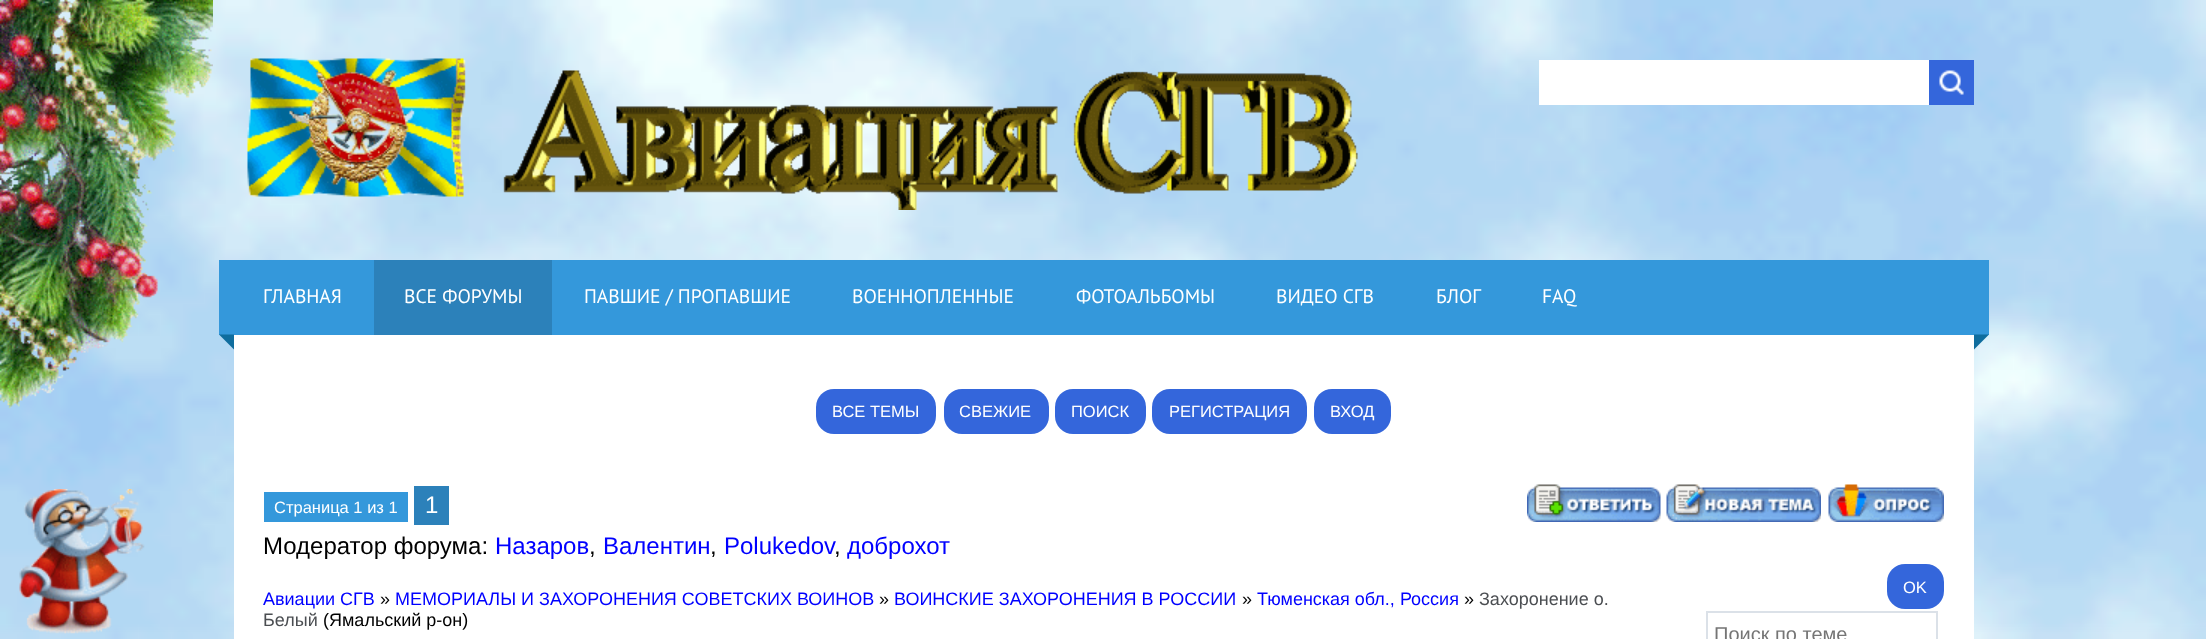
<svg xmlns="http://www.w3.org/2000/svg" width="2206" height="639">
	<rect width="100%" height="100%" fill="#FFFFFF" />
	<image x="0" y="0" width="2206" height="639" href="assets/img1.png" />
	<image x="0" y="0" width="213" height="409" href="assets/img2.png" />
	<image x="247" y="58" width="1111" height="152" href="assets/img3.png" />
	<rect x="1539" y="60" width="390" height="45" fill="#FFFFFF" />
	<rect x="1929" y="60" width="45" height="45" fill="#3466DB" />
	<image x="1939" y="70" width="25" height="25" href="assets/img4.png" />
	<rect x="219" y="260" width="1770" height="75" fill="#3498DB" />
	<text x="263" y="303" font-family="PT Sans" font-size="19.5" fill="#FFFFFF">ГЛАВНАЯ</text>
	<rect x="374" y="260" width="178" height="75" fill="#2C81BA" />
	<g font-family="PT Sans" font-size="19.5" fill="#FFFFFF">
		<text x="404" y="303">ВСЕ ФОРУМЫ</text>
		<text x="584" y="303">ПАВШИЕ / ПРОПАВШИЕ</text>
		<text x="852" y="303">ВОЕННОПЛЕННЫЕ</text>
		<text x="1076" y="303">ФОТОАЛЬБОМЫ</text>
		<text x="1276" y="303">ВИДЕО СГВ</text>
		<text x="1436" y="303">БЛОГ</text>
		<text x="1542" y="303">FAQ</text>
	</g>
	<path d="M219 334.5H234V349.5Z" fill="#0F6D9E" />
	<path d="M1974 334.5H1989L1974 349.5Z" fill="#0F6D9E" />
	<image x="19" y="489" width="126" height="145" href="assets/img5.png" />
	<rect x="234" y="335" width="1740" height="304" fill="#FFFFFF" />
	<rect x="816" y="389" width="120" height="45" rx="18" fill="#3466DB" />
	<text x="832" y="417" font-family="Liberation Sans" font-size="16.5" fill="#FFFFFF">ВСЕ ТЕМЫ</text>
	<rect x="944" y="389" width="105" height="45" rx="18" fill="#3466DB" />
	<text x="959" y="417" font-family="Liberation Sans" font-size="16.5" fill="#FFFFFF">СВЕЖИЕ</text>
	<rect x="1055" y="389" width="91" height="45" rx="18" fill="#3466DB" />
	<text x="1071" y="417" font-family="Liberation Sans" font-size="16.5" fill="#FFFFFF">ПОИСК</text>
	<rect x="1152" y="389" width="155" height="45" rx="18" fill="#3466DB" />
	<text x="1169" y="417" font-family="Liberation Sans" font-size="16.5" fill="#FFFFFF">РЕГИСТРАЦИЯ</text>
	<rect x="1314" y="389" width="77" height="45" rx="18" fill="#3466DB" />
	<text x="1330" y="417" font-family="Liberation Sans" font-size="16.5" fill="#FFFFFF">ВХОД</text>
	<rect x="264" y="492" width="144" height="30" fill="#3498DB" />
	<text x="274" y="513" font-family="Liberation Sans" font-size="16.5" fill="#FFFFFF">Страница 1 из 1</text>
	<rect x="414" y="486" width="35" height="39" fill="#2C81BA" />
	<text x="425" y="513" font-family="Liberation Sans" font-size="24" fill="#FFFFFF">1</text>
	<image x="1527" y="484" width="134" height="38" href="assets/img6.png" />
	<image x="1666" y="484" width="155" height="38" href="assets/img7.png" />
	<image x="1828" y="484" width="116" height="38" href="assets/img8.png" />
	<text x="263" y="554" font-family="Liberation Sans" font-size="24" fill="#000000">Модератор форума:</text>
	<text x="495" y="554" font-family="Liberation Sans" font-size="24" fill="#0000FF">Назаров</text>
	<text x="589" y="554" font-family="Liberation Sans" font-size="24" fill="#000000">,</text>
	<text x="603" y="554" font-family="Liberation Sans" font-size="24" fill="#0000FF">Валентин</text>
	<text x="710" y="554" font-family="Liberation Sans" font-size="24" fill="#000000">,</text>
	<text x="724" y="554" font-family="Liberation Sans" font-size="24" fill="#0000FF">Polukedov</text>
	<text x="834" y="554" font-family="Liberation Sans" font-size="24" fill="#000000">,</text>
	<text x="847" y="554" font-family="Liberation Sans" font-size="24" fill="#0000FF">доброхот</text>
	<text x="263" y="605" font-family="Liberation Sans" font-size="18" fill="#0000FF">Авиации СГВ</text>
	<text x="380" y="605" font-family="Liberation Sans" font-size="18" fill="#000000">»</text>
	<text x="395" y="605" font-family="Liberation Sans" font-size="18" fill="#0000FF">МЕМОРИАЛЫ И ЗАХОРОНЕНИЯ СОВЕТСКИХ ВОИНОВ</text>
	<text x="879" y="605" font-family="Liberation Sans" font-size="18" fill="#000000">»</text>
	<text x="894" y="605" font-family="Liberation Sans" font-size="18" fill="#0000FF">ВОИНСКИЕ ЗАХОРОНЕНИЯ В РОССИИ</text>
	<text x="1242" y="605" font-family="Liberation Sans" font-size="18" fill="#000000">»</text>
	<text x="1257" y="605" font-family="Liberation Sans" font-size="18" fill="#0000FF">Тюменская обл., Россия</text>
	<text x="1464" y="605" font-family="Liberation Sans" font-size="18" fill="#000000">»</text>
	<g font-family="Liberation Sans" font-size="18" fill="#4B4E52">
		<text x="1479" y="605">Захоронение о.</text>
		<text x="263" y="626">Белый</text>
	</g>
	<text x="323" y="626" font-family="Liberation Sans" font-size="18" fill="#000000">(Ямальский р-он)</text>
	<rect x="1887" y="564" width="57" height="45" rx="18" fill="#3466DB" />
	<text x="1903" y="593" font-family="Liberation Sans" font-size="16.5" fill="#FFFFFF">OK</text>
	<rect x="1707" y="612" width="230" height="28" fill="none" stroke="#DBE1E8" stroke-width="2" />
	<text x="1714" y="641" font-family="Liberation Sans" font-size="20" fill="#757575">Поиск по теме</text>
</svg>
